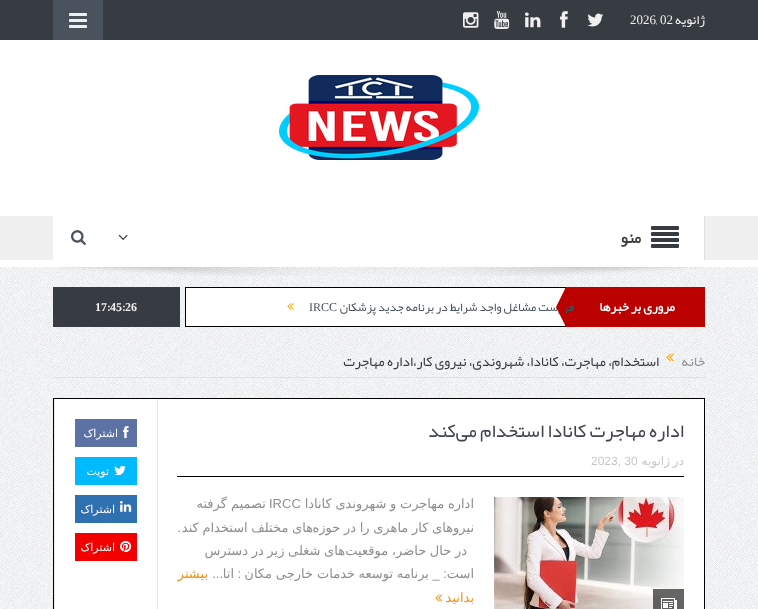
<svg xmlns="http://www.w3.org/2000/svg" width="758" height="609">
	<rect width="100%" height="100%" fill="#FFFFFF" />
	<image x="0" y="267" width="758" height="342" href="assets/img1.png" />
	<rect x="0" y="0" width="758" height="40" fill="#373C43" />
	<text x="705" y="24" font-family="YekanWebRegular" font-size="13" direction="rtl" fill="#F0F0F0">ژانویه</text>
	<text x="660" y="24" font-family="Liberation Serif" font-size="13" fill="#F0F0F0">02</text>
	<text x="656" y="24" font-family="YekanWebRegular" font-size="13" fill="#F0F0F0">,</text>
	<text x="630" y="24" font-family="Liberation Serif" font-size="13" fill="#F0F0F0">2026</text>
	<image x="587" y="13" width="17" height="14" href="assets/img2.png" />
	<image x="560" y="11" width="8" height="17" href="assets/img3.png" />
	<image x="525" y="12" width="16" height="16" href="assets/img4.png" />
	<image x="494" y="11" width="16" height="18" href="assets/img5.png" />
	<image x="463" y="12" width="16" height="16" href="assets/img6.png" />
	<rect x="53" y="0" width="50" height="40" fill="#4A525D" />
	<image x="69" y="13" width="18" height="15" href="assets/img7.png" />
	<image x="279" y="75" width="200" height="85" href="assets/img8.png" />
	<rect x="0" y="216" width="758" height="44" fill="#F0F0F0" />
	<rect x="53" y="216" width="651" height="44" fill="#FFFFFF" />
	<rect x="704" y="216" width="1" height="44" fill="#DFDFDF" />
	<image x="651" y="226" width="28" height="22" href="assets/img9.png" />
	<text x="641" y="243" font-family="YekanWebRegular" font-size="16" font-weight="700" direction="rtl" fill="#3C3C3C">منو</text>
	<image x="118" y="234" width="10" height="6" href="assets/img10.png" />
	<image x="71" y="230" width="15" height="15" href="assets/img11.png" />
	<image x="58" y="267" width="644" height="9" href="assets/img12.png" />
	<rect x="566" y="287" width="139" height="40" fill="#BB0000" />
	<text x="675" y="311" font-family="YekanWebRegular" font-size="13" font-weight="700" direction="rtl" fill="#FFFFFF">مروری بر خبرها</text>
	<rect x="185.5" y="287.5" width="380" height="39" fill="#FFFFFF" stroke="#000000" />
	<text x="574" y="311" font-family="YekanWebRegular" font-size="12" direction="rtl" fill="#4A525D">فهرست مشاغل واجد شرایط در برنامه جدید پزشکان</text>
	<path d="M566 287V327L556 307Z" fill="#BB0000" />
	<text x="309" y="311" font-family="Liberation Serif" font-size="12" fill="#4A525D">IRCC</text>
	<image x="287" y="303" width="7" height="7" href="assets/img13.png" />
	<rect x="53" y="287" width="127" height="40" fill="#373C43" />
	<text x="95" y="311" font-family="Liberation Serif" font-size="12" font-weight="700" fill="#F0F0F0">17 45 26</text>
	<g font-family="YekanWebRegular" font-size="12" font-weight="700" fill="#F0F0F0">
		<text x="122" y="311">:</text>
		<text x="107" y="311">:</text>
	</g>
	<rect x="53" y="377" width="652" height="1" fill="#E0E0E0" />
	<text x="705" y="366" font-family="YekanWebRegular" font-size="14" direction="rtl" fill="#959595">خانه</text>
	<image x="666" y="353" width="8" height="9" href="assets/img14.png" />
	<text x="659" y="366" font-family="YekanWebRegular" font-size="14" direction="rtl" fill="#373C43">استخدام، مهاجرت، کانادا، شهروندی، نیروی کار،اداره مهاجرت</text>
	<rect x="55" y="399" width="649" height="210" fill="#FFFFFF" />
	<rect x="53.5" y="398.5" width="651" height="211" fill="none" stroke="#000000" />
	<rect x="177" y="476" width="507" height="1" fill="#000000" />
	<text x="684" y="437" font-family="YekanWebRegular" font-size="19" direction="rtl" fill="#40454D">اداره مهاجرت کانادا استخدام می‌کند</text>
	<g font-family="DejaVu Sans" font-size="12" direction="rtl" fill="#C6C6C6">
		<text x="684" y="465">در</text>
		<text x="670" y="465">ژانویه</text>
	</g>
	<text x="591" y="465" font-family="Liberation Sans" font-size="12" fill="#C6C6C6">2023, 30</text>
	<image x="494" y="497" width="190" height="112" href="assets/img15.png" />
	<rect x="653" y="589" width="31" height="20" fill="#000000" fill-opacity="0.6" />
	<image x="661" y="598" width="16" height="11" href="assets/img16.png" />
	<text x="474" y="508" word-spacing="-0.5" font-family="DejaVu Sans" font-size="13" direction="rtl" fill="#8E8E8E">اداره مهاجرت و شهروندی کانادا</text>
	<text x="269" y="508" font-family="Liberation Sans" font-size="13" fill="#8E8E8E">IRCC</text>
	<g font-family="DejaVu Sans" font-size="13" direction="rtl" fill="#8E8E8E">
		<text x="266" y="508">تصمیم گرفته</text>
		<text x="313" y="532" word-spacing="-0.5">های مختلف استخدام کند</text>
		<text x="474" y="532" word-spacing="-0.5">نیروهای کار ماهری را در حوزه</text>
	</g>
	<text x="181" y="532" font-family="Liberation Sans" font-size="13" direction="rtl" fill="#8E8E8E">.</text>
	<g font-family="DejaVu Sans" font-size="13" direction="rtl" fill="#8E8E8E">
		<text x="345" y="555" word-spacing="-0.5">های شغلی زیر در دسترس</text>
		<text x="467" y="555" word-spacing="-0.5">در حال حاضر، موقعیت</text>
		<text x="474" y="578">است</text>
		<text x="429" y="578">برنامه</text>
		<text x="355" y="578">خدمات</text>
		<text x="313" y="578">خارجی</text>
		<text x="272" y="578">مکان</text>
		<text x="234" y="578">اتا</text>
	</g>
	<g font-family="DejaVu Sans" font-size="13" direction="rtl" fill="#F09217">
		<text x="208" y="578">بیشتر</text>
		<text x="474" y="602">بدانید</text>
	</g>
	<image x="435" y="594" width="8" height="8" href="assets/img17.png" />
	<text x="447" y="578" font-family="Liberation Sans" font-size="13" direction="rtl" fill="#8E8E8E">: _</text>
	<text x="393" y="578" font-family="DejaVu Sans" font-size="13" direction="rtl" fill="#8E8E8E">توسعه</text>
	<g font-family="Liberation Sans" font-size="13" direction="rtl" fill="#8E8E8E">
		<text x="241" y="578">:</text>
		<text x="223" y="578">...</text>
	</g>
	<rect x="157" y="399" width="1" height="210" fill="#EAEAEA" />
	<rect x="54" y="399" width="1" height="210" fill="#EAEAEA" />
	<rect x="75" y="419" width="62" height="28" fill="#5D72A4" />
	<image x="123" y="426" width="6" height="13" href="assets/img18.png" />
	<text x="118" y="437" font-family="DejaVu Sans" font-size="11" direction="rtl" fill="#FFFFFF">اشتراک</text>
	<rect x="75" y="457" width="62" height="28" fill="#00BAFF" />
	<image x="114" y="465" width="12" height="11" href="assets/img19.png" />
	<text x="109" y="475" font-family="DejaVu Sans" font-size="11" direction="rtl" fill="#FFFFFF">تویت</text>
	<rect x="75" y="495" width="62" height="28" fill="#2F70B0" />
	<image x="120" y="501" width="12" height="11" href="assets/img20.png" />
	<text x="115" y="513" font-family="DejaVu Sans" font-size="11" direction="rtl" fill="#FFFFFF">اشتراک</text>
	<rect x="75" y="533" width="62" height="28" fill="#F20000" />
	<image x="120" y="540" width="12" height="13" href="assets/img21.png" />
	<text x="115" y="551" font-family="DejaVu Sans" font-size="11" direction="rtl" fill="#FFFFFF">اشتراک</text>
</svg>
